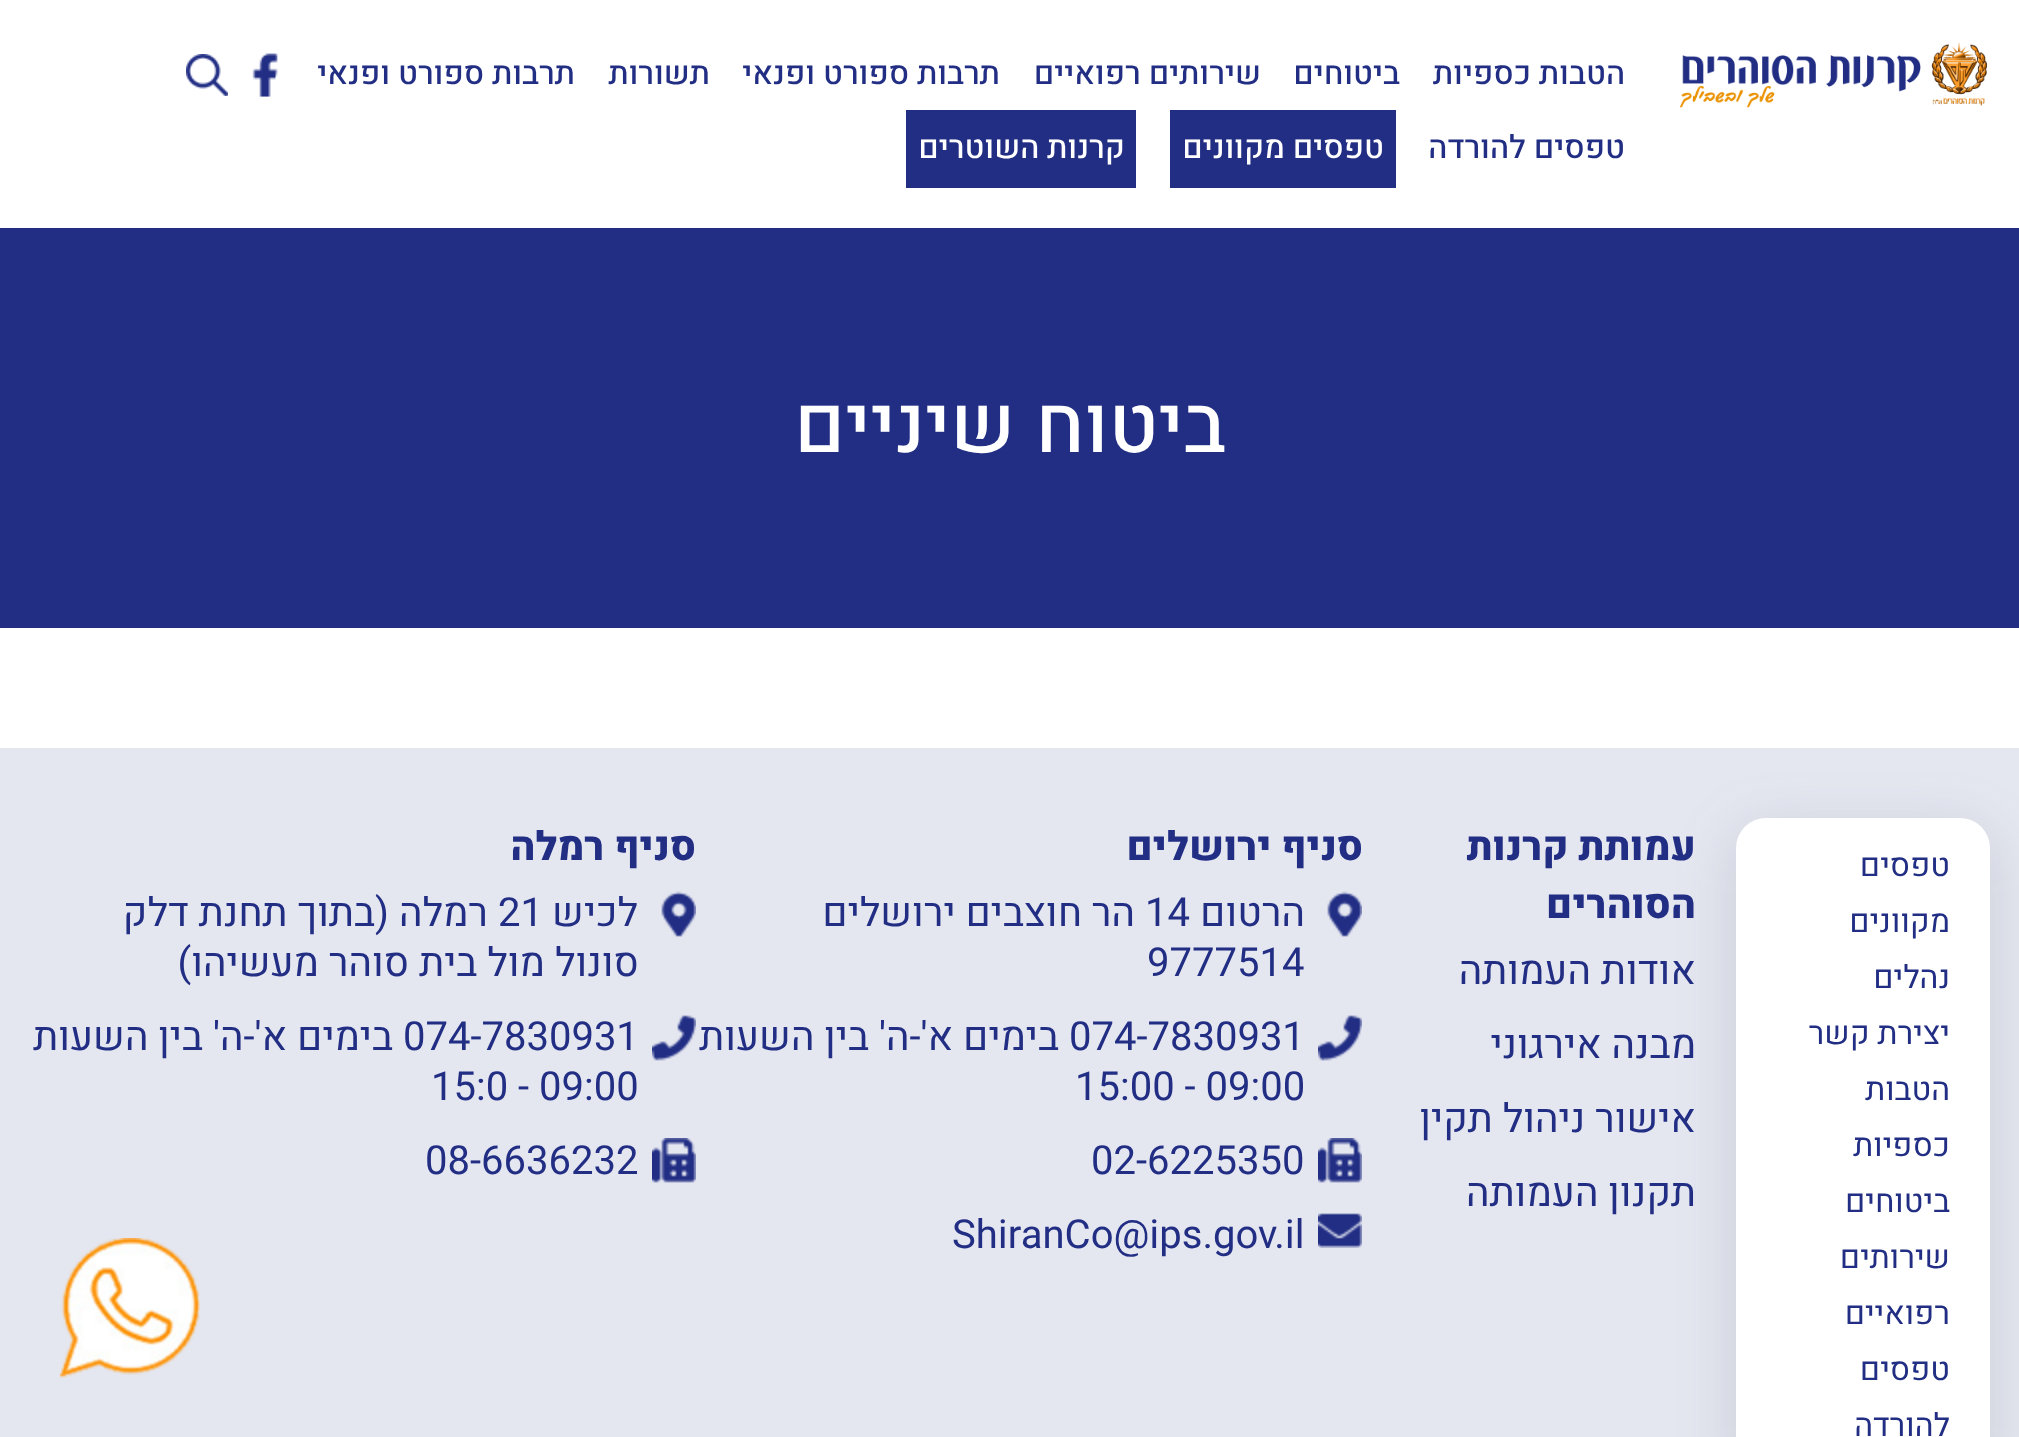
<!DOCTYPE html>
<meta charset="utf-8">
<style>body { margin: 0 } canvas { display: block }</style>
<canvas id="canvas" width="2019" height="1437"></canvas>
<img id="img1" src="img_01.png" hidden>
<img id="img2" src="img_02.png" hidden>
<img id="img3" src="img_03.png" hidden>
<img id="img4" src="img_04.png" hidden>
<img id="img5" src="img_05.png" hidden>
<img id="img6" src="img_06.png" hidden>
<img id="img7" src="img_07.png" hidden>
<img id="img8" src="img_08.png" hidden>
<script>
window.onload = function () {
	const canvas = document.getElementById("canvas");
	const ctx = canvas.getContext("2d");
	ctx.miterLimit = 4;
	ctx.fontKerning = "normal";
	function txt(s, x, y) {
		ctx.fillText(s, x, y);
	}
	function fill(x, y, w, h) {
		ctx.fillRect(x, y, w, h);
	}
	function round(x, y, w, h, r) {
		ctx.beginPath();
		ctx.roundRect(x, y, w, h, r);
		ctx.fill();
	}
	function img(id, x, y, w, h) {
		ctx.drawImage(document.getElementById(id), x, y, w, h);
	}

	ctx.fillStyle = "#FFFFFF";
	fill(0, 0, 2019, 1437);
	img("img1", 1680, 42, 308, 66);
	img("img2", 252, 53, 26, 44);
	img("img3", 186, 54, 42, 42);
	ctx.fillStyle = "#212E84";
	fill(1170, 110, 226, 78);
	fill(906, 110, 230, 78);
	fill(0, 228, 2019, 400);
	ctx.fillStyle = "#E4E6F0";
	fill(0, 748, 2019, 689);
	ctx.fillStyle = "rgba(100, 100, 111, 0.2)";
	ctx.filter = "blur(29px)";
	ctx.beginPath();
	ctx.roundRect(1736, 832, 254, 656, 30);
	ctx.fill();
	ctx.filter = "none";
	ctx.fillStyle = "#FFFFFF";
	round(1736, 818, 254, 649, 30);
	img("img4", 1327, 891, 35, 46);
	img("img5", 1318, 1015, 44, 46);
	img("img6", 1318, 1138, 44, 45);
	img("img7", 1318, 1213, 44, 35);
	img("img4", 661, 891, 35, 46);
	img("img5", 652, 1015, 44, 46);
	img("img6", 652, 1138, 44, 45);
	img("img8", 60, 1238, 140, 140);
	ctx.direction = "rtl";
	ctx.font = "500 32px Heebo";
	ctx.fillStyle = "#212E84";
	txt("הטבות כספיות", 1625, 84);
	txt("ביטוחים", 1400, 84);
	txt("שירותים רפואיים", 1261, 84);
	txt("תרבות ספורט ופנאי", 1000, 84);
	txt("תשורות", 710, 84);
	txt("תרבות ספורט ופנאי", 575, 84);
	txt("טפסים להורדה", 1625, 158);
	ctx.fillStyle = "#FFFFFF";
	txt("טפסים מקוונים", 1384, 158);
	txt("קרנות השוטרים", 1125, 158);
	ctx.font = "500 80px Heebo";
	txt("ביטוח שיניים", 1226, 452);
	ctx.font = "32px Heebo";
	ctx.fillStyle = "#212E84";
	txt("טפסים", 1950, 876);
	txt("מקוונים", 1950, 932);
	txt("נהלים", 1950, 988);
	txt("יצירת קשר", 1950, 1044);
	txt("הטבות", 1950, 1100);
	txt("כספיות", 1950, 1156);
	txt("ביטוחים", 1950, 1212);
	txt("שירותים", 1950, 1268);
	txt("רפואיים", 1950, 1324);
	txt("טפסים", 1950, 1380);
	txt("להורדה", 1950, 1436);
	ctx.font = "800 40px Heebo";
	txt("עמותת קרנות", 1696, 860);
	txt("הסוהרים", 1696, 918);
	ctx.font = "40px Heebo";
	txt("אודות העמותה", 1696, 984);
	txt("מבנה אירגוני", 1696, 1058);
	txt("אישור ניהול תקין", 1696, 1132);
	txt("תקנון העמותה", 1696, 1206);
	ctx.font = "800 40px Heebo";
	txt("סניף ירושלים", 1363, 860);
	ctx.font = "40px Heebo";
	txt("הרטום", 1305, 926);
	ctx.direction = "ltr";
	txt("14", 1145, 926);
	ctx.direction = "rtl";
	txt("הר חוצבים ירושלים", 1135, 926);
	ctx.direction = "ltr";
	txt("9777514", 1147, 976);
	txt("074-7830931", 1069, 1050);
	ctx.direction = "rtl";
	txt("בימים א'-ה' בין השעות", 1059, 1050);
	ctx.direction = "ltr";
	txt("15:00 - 09:00", 1075, 1100);
	txt("02-6225350", 1091, 1174);
	txt("ShiranCo@ips.gov.il", 952, 1248);
	ctx.direction = "rtl";
	ctx.font = "800 40px Heebo";
	txt("סניף רמלה", 696, 860);
	ctx.font = "40px Heebo";
	txt("לכיש", 638, 926);
	ctx.direction = "ltr";
	txt("21", 498, 926);
	ctx.direction = "rtl";
	txt("רמלה (בתוך תחנת דלק", 488, 926);
	txt("סונול מול בית סוהר מעשיהו)", 639, 976);
	ctx.direction = "ltr";
	txt("074-7830931", 403, 1050);
	ctx.direction = "rtl";
	txt("בימים א'-ה' בין השעות", 393, 1050);
	ctx.direction = "ltr";
	txt("15:0 - 09:00", 431, 1100);
	txt("08-6636232", 425, 1174);
};
</script>
